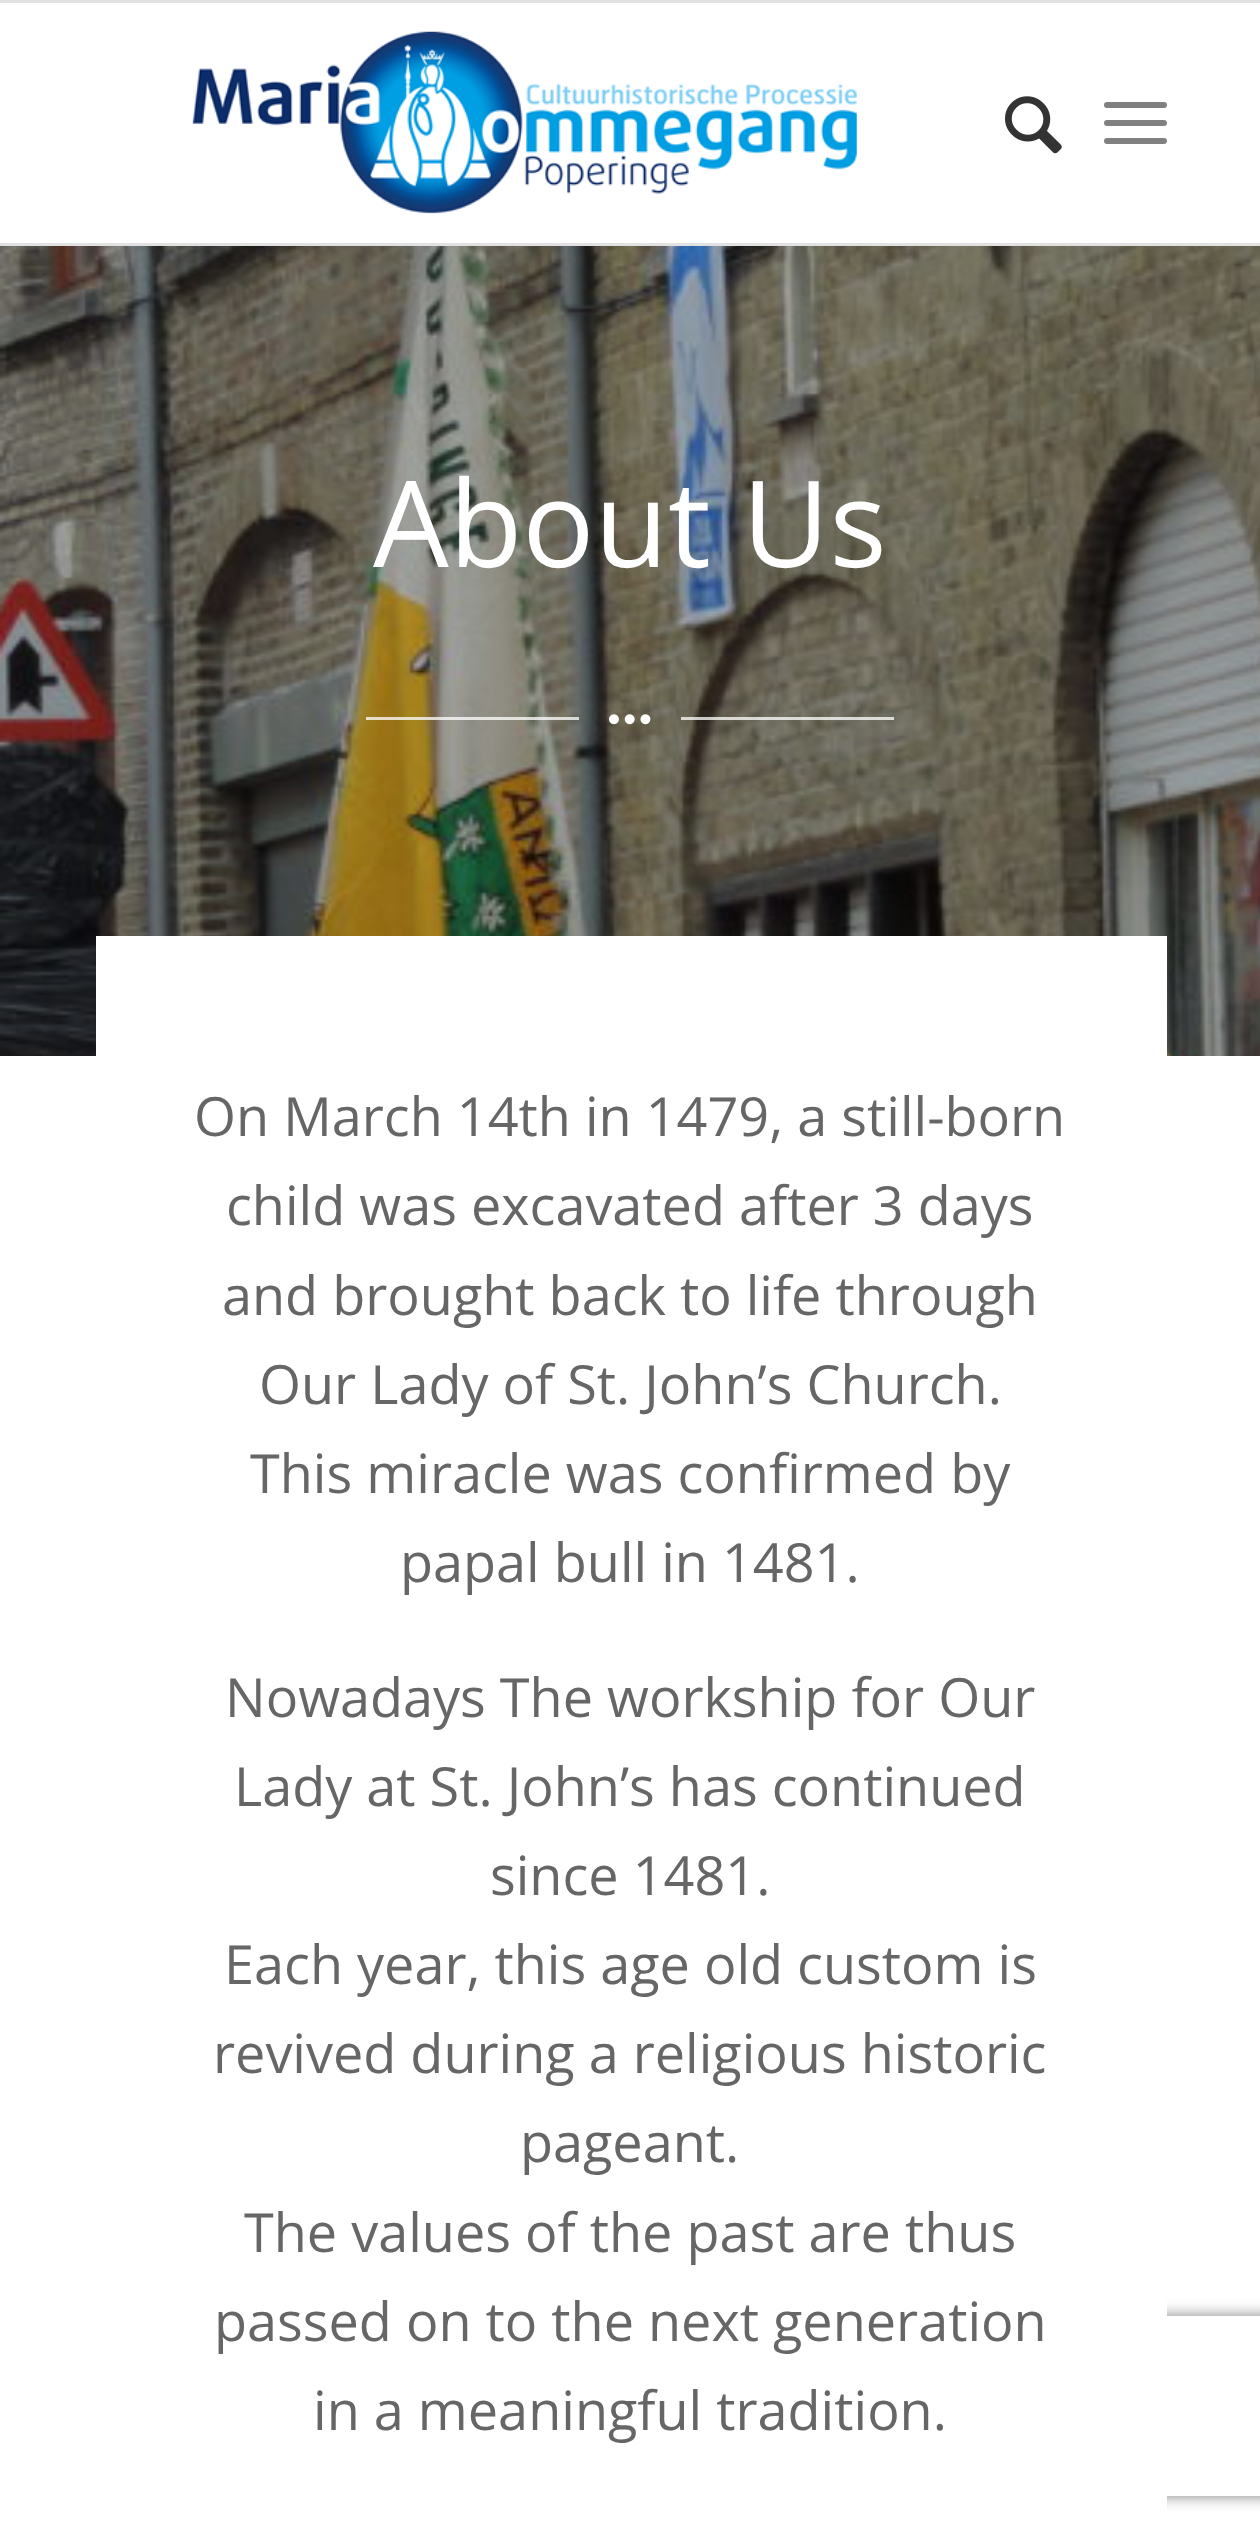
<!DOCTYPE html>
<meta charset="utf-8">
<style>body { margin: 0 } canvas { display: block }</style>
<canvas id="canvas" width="1260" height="2536"></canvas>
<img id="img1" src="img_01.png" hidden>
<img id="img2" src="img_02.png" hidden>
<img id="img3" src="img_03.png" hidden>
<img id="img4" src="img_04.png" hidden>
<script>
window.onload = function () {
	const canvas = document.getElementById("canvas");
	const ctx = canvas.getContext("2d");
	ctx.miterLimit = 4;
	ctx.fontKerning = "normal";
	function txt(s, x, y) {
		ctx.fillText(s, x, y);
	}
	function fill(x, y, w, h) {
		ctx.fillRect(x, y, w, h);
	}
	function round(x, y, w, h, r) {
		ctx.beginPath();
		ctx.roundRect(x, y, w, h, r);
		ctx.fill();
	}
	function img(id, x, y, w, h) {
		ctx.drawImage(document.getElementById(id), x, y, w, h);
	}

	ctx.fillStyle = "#FFFFFF";
	fill(0, 0, 1260, 2536);
	ctx.fillStyle = "#E1E1E1";
	fill(0, 0, 1260, 3);
	fill(0, 243, 1260, 3);
	img("img1", 192, 31, 665, 183);
	img("img2", 1005, 96, 57, 58);
	ctx.fillStyle = "#808080";
	round(1104, 120, 63, 6, 3);
	round(1104, 102, 63, 6, 3);
	round(1104, 138, 63, 6, 3);
	img("img3", 0, 246, 1260, 810);
	ctx.fillStyle = "rgba(255, 255, 255, 0.76)";
	fill(366, 717, 213, 3);
	img("img4", 609, 714, 42, 11);
	fill(681, 717, 213, 3);
	ctx.save();
	ctx.beginPath();
	ctx.moveTo(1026, 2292);
	ctx.lineTo(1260, 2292);
	ctx.lineTo(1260, 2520);
	ctx.lineTo(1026, 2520);
	ctx.closePath();
	ctx.moveTo(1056, 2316);
	ctx.lineTo(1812, 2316);
	ctx.bezierCurveTo(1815.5, 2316, 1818, 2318.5, 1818, 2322);
	ctx.lineTo(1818, 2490);
	ctx.bezierCurveTo(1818, 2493.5, 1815.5, 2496, 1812, 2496);
	ctx.lineTo(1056, 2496);
	ctx.bezierCurveTo(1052.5, 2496, 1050, 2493.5, 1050, 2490);
	ctx.lineTo(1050, 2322);
	ctx.bezierCurveTo(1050, 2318.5, 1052.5, 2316, 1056, 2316);
	ctx.closePath();
	ctx.clip("evenodd");
	ctx.fillStyle = "#808080";
	ctx.filter = "blur(7.5px)";
	ctx.beginPath();
	ctx.roundRect(1050, 2316, 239, 180, 6);
	ctx.fill();
	ctx.filter = "none";
	ctx.restore();
	ctx.fillStyle = "#FFFFFF";
	fill(96, 936, 1071, 1575);
	ctx.font = "120px Open Sans";
	txt("About Us", 373, 567);
	ctx.font = "54px Open Sans";
	ctx.fillStyle = "#666666";
	txt("On March 14th in 1479, a still-born", 194, 1136);
	txt("child was excavated after 3 days", 226, 1225);
	txt("and brought back to life through", 222, 1315);
	txt("Our Lady of St. John’s Church.", 259, 1404);
	txt("This miracle was confirmed by", 250, 1493);
	txt("papal bull in 1481.", 400, 1582);
	txt("Nowadays The workship for Our", 225, 1717);
	txt("Lady at St. John’s has continued", 234, 1806);
	txt("since 1481.", 490, 1895);
	txt("Each year, this age old custom is", 224, 1984);
	txt("revived during a religious historic", 213, 2073);
	txt("pageant.", 520, 2162);
	txt("The values of the past are thus", 244, 2252);
	txt("passed on to the next generation", 214, 2341);
	txt("in a meaningful tradition.", 313, 2430);
};
</script>
